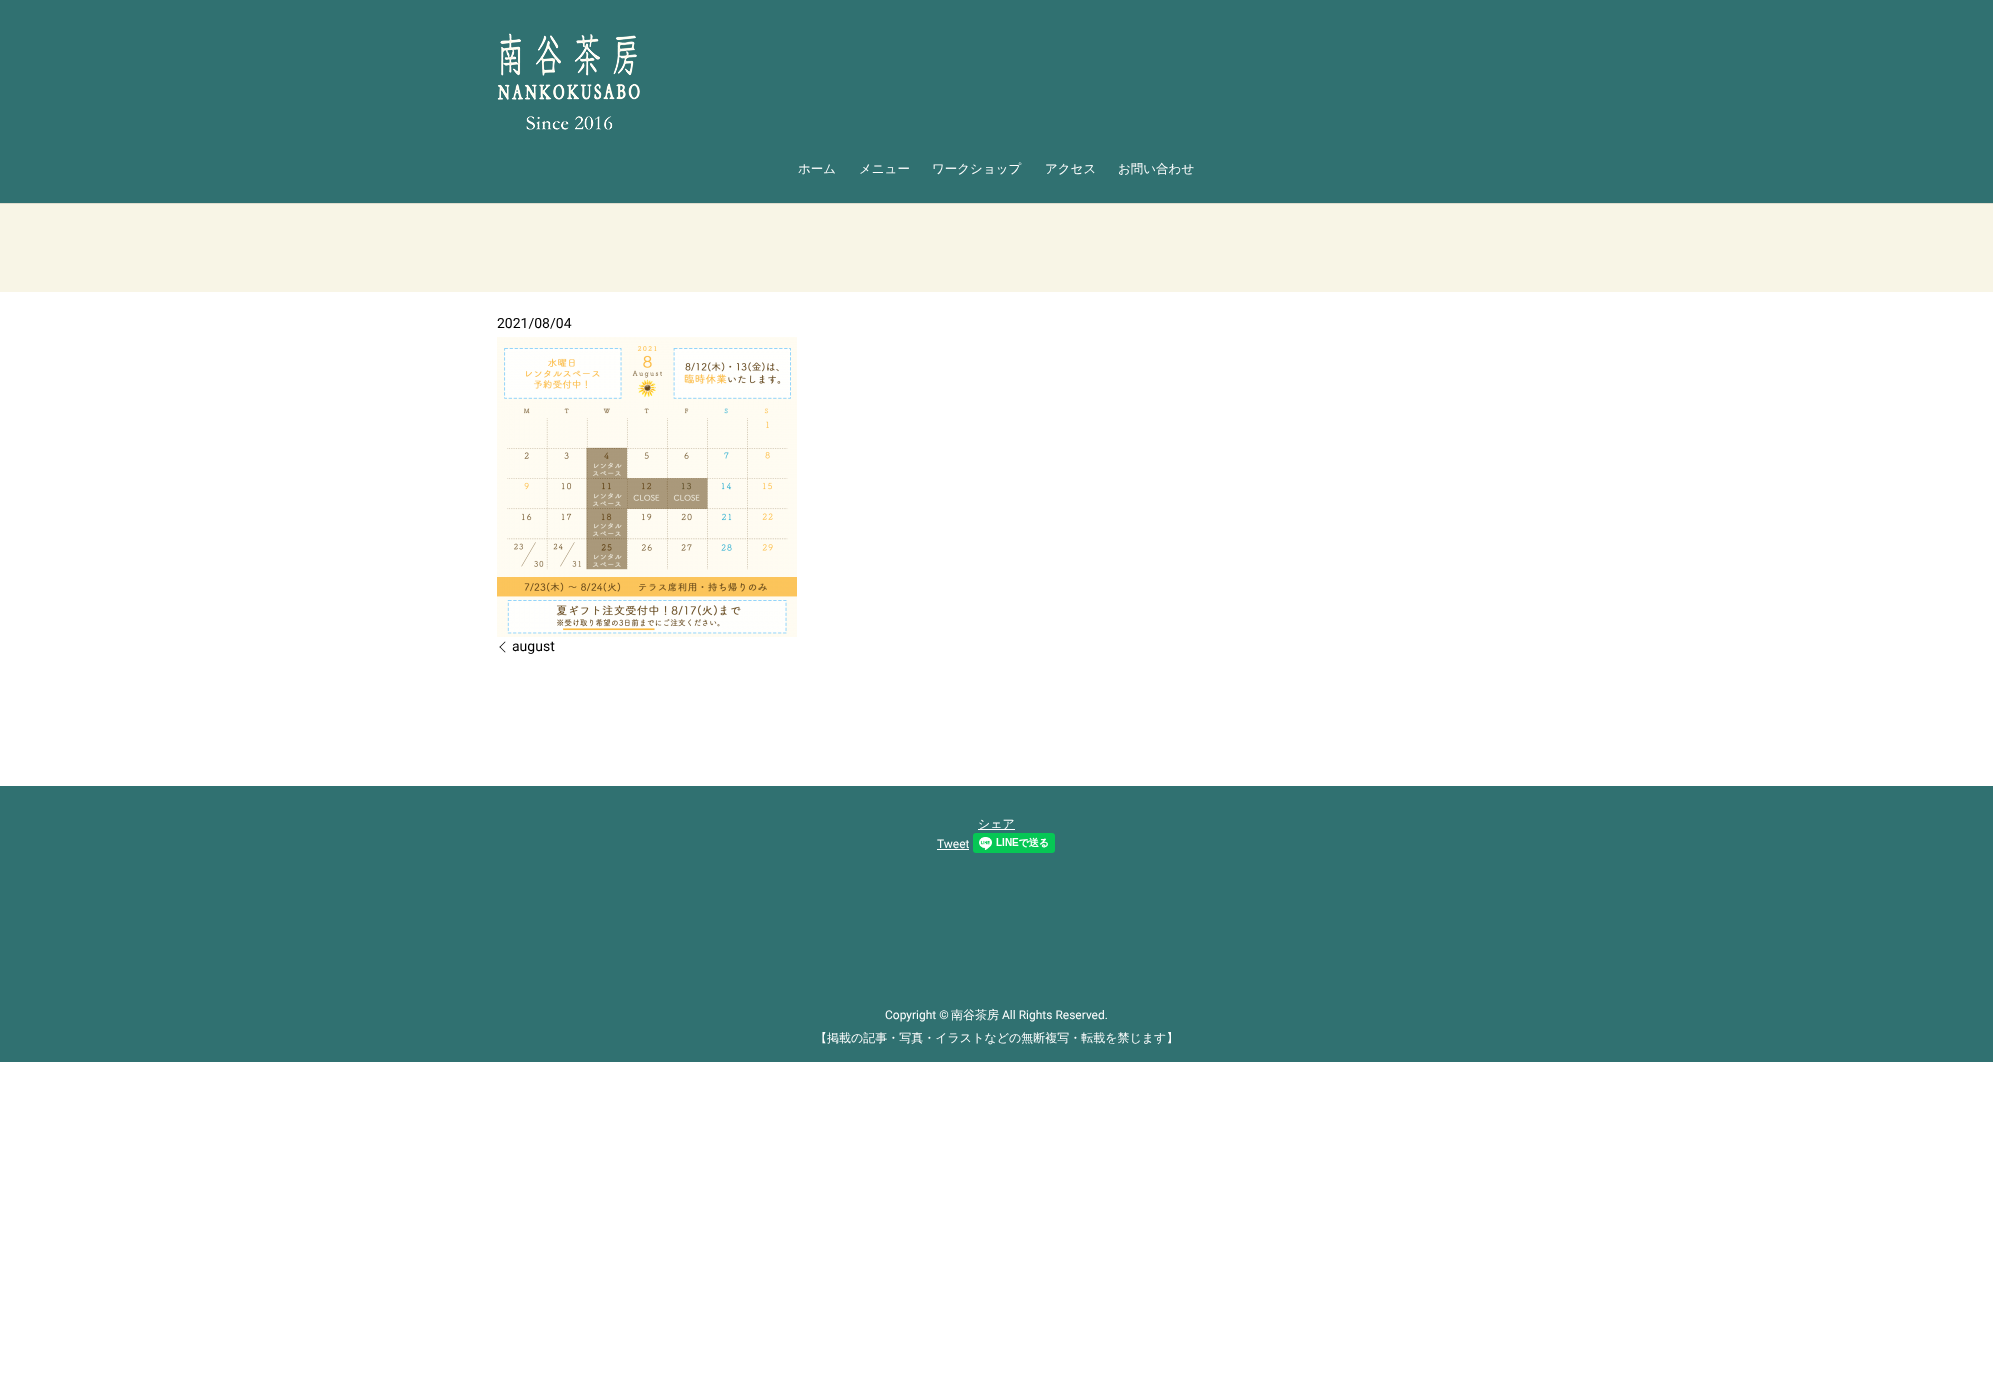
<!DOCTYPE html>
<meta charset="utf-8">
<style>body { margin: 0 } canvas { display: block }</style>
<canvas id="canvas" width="1993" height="1379"></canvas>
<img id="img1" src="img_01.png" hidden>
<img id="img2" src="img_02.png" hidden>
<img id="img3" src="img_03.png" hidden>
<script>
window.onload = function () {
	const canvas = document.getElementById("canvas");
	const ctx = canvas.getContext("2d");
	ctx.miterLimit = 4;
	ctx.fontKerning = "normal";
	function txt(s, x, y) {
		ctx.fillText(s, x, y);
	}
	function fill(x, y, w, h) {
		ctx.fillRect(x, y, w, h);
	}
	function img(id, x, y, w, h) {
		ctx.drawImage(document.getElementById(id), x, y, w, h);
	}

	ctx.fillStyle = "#FFFFFF";
	fill(0, 0, 1993, 1379);
	ctx.fillStyle = "#F8F5E6";
	fill(0, 203, 1993, 89);
	ctx.fillStyle = "rgba(0, 0, 0, 0.1)";
	ctx.filter = "blur(0.5px)";
	ctx.beginPath();
	ctx.rect(0, 1, 1993, 203);
	ctx.fill();
	ctx.filter = "none";
	ctx.fillStyle = "#307171";
	fill(0, 0, 1993, 203);
	img("img1", 497, 33, 143, 97);
	img("img2", 497, 337, 300, 300);
	ctx.fillStyle = "#000000";
	ctx.beginPath();
	ctx.moveTo(499.5, 647);
	ctx.lineTo(505, 641.5);
	ctx.lineTo(505.5, 642);
	ctx.lineTo(500, 647.5);
	ctx.closePath();
	ctx.fill();
	ctx.beginPath();
	ctx.moveTo(505, 652.5);
	ctx.lineTo(499.5, 647);
	ctx.lineTo(500, 646.5);
	ctx.lineTo(505.5, 652);
	ctx.closePath();
	ctx.fill();
	ctx.fillStyle = "#307171";
	fill(0, 786, 1993, 276);
	ctx.fillStyle = "#FFFFFF";
	fill(978, 829, 37, 1);
	fill(937, 849, 32, 1);
	img("img3", 973, 833, 82, 20);
	ctx.font = "500 12.5px WenQuanYi Zen Hei";
	txt("ホーム", 798, 173);
	txt("メニュー", 859, 173);
	txt("ワークショップ", 932, 173);
	txt("アクセス", 1045, 173);
	txt("お問い合わせ", 1118, 173);
	ctx.font = "14px Roboto";
	ctx.fillStyle = "#000000";
	txt("2021/08/04", 497, 328);
	txt("august", 512, 651);
	ctx.font = "500 12px WenQuanYi Zen Hei";
	ctx.fillStyle = "#FFFFFF";
	txt("シェア", 978, 828);
	ctx.font = "12px Roboto";
	txt("Tweet", 937, 848);
	txt("Copyright ©", 885, 1019);
	ctx.font = "500 12px WenQuanYi Zen Hei";
	txt("南谷茶房", 951, 1019);
	ctx.font = "12px Roboto";
	txt("All Rights Reserved.", 1002, 1019);
	ctx.font = "500 12px WenQuanYi Zen Hei";
	txt("【掲載の記事・写真・イラストなどの無断複写・転載を禁じます】", 815, 1042);
};
</script>
